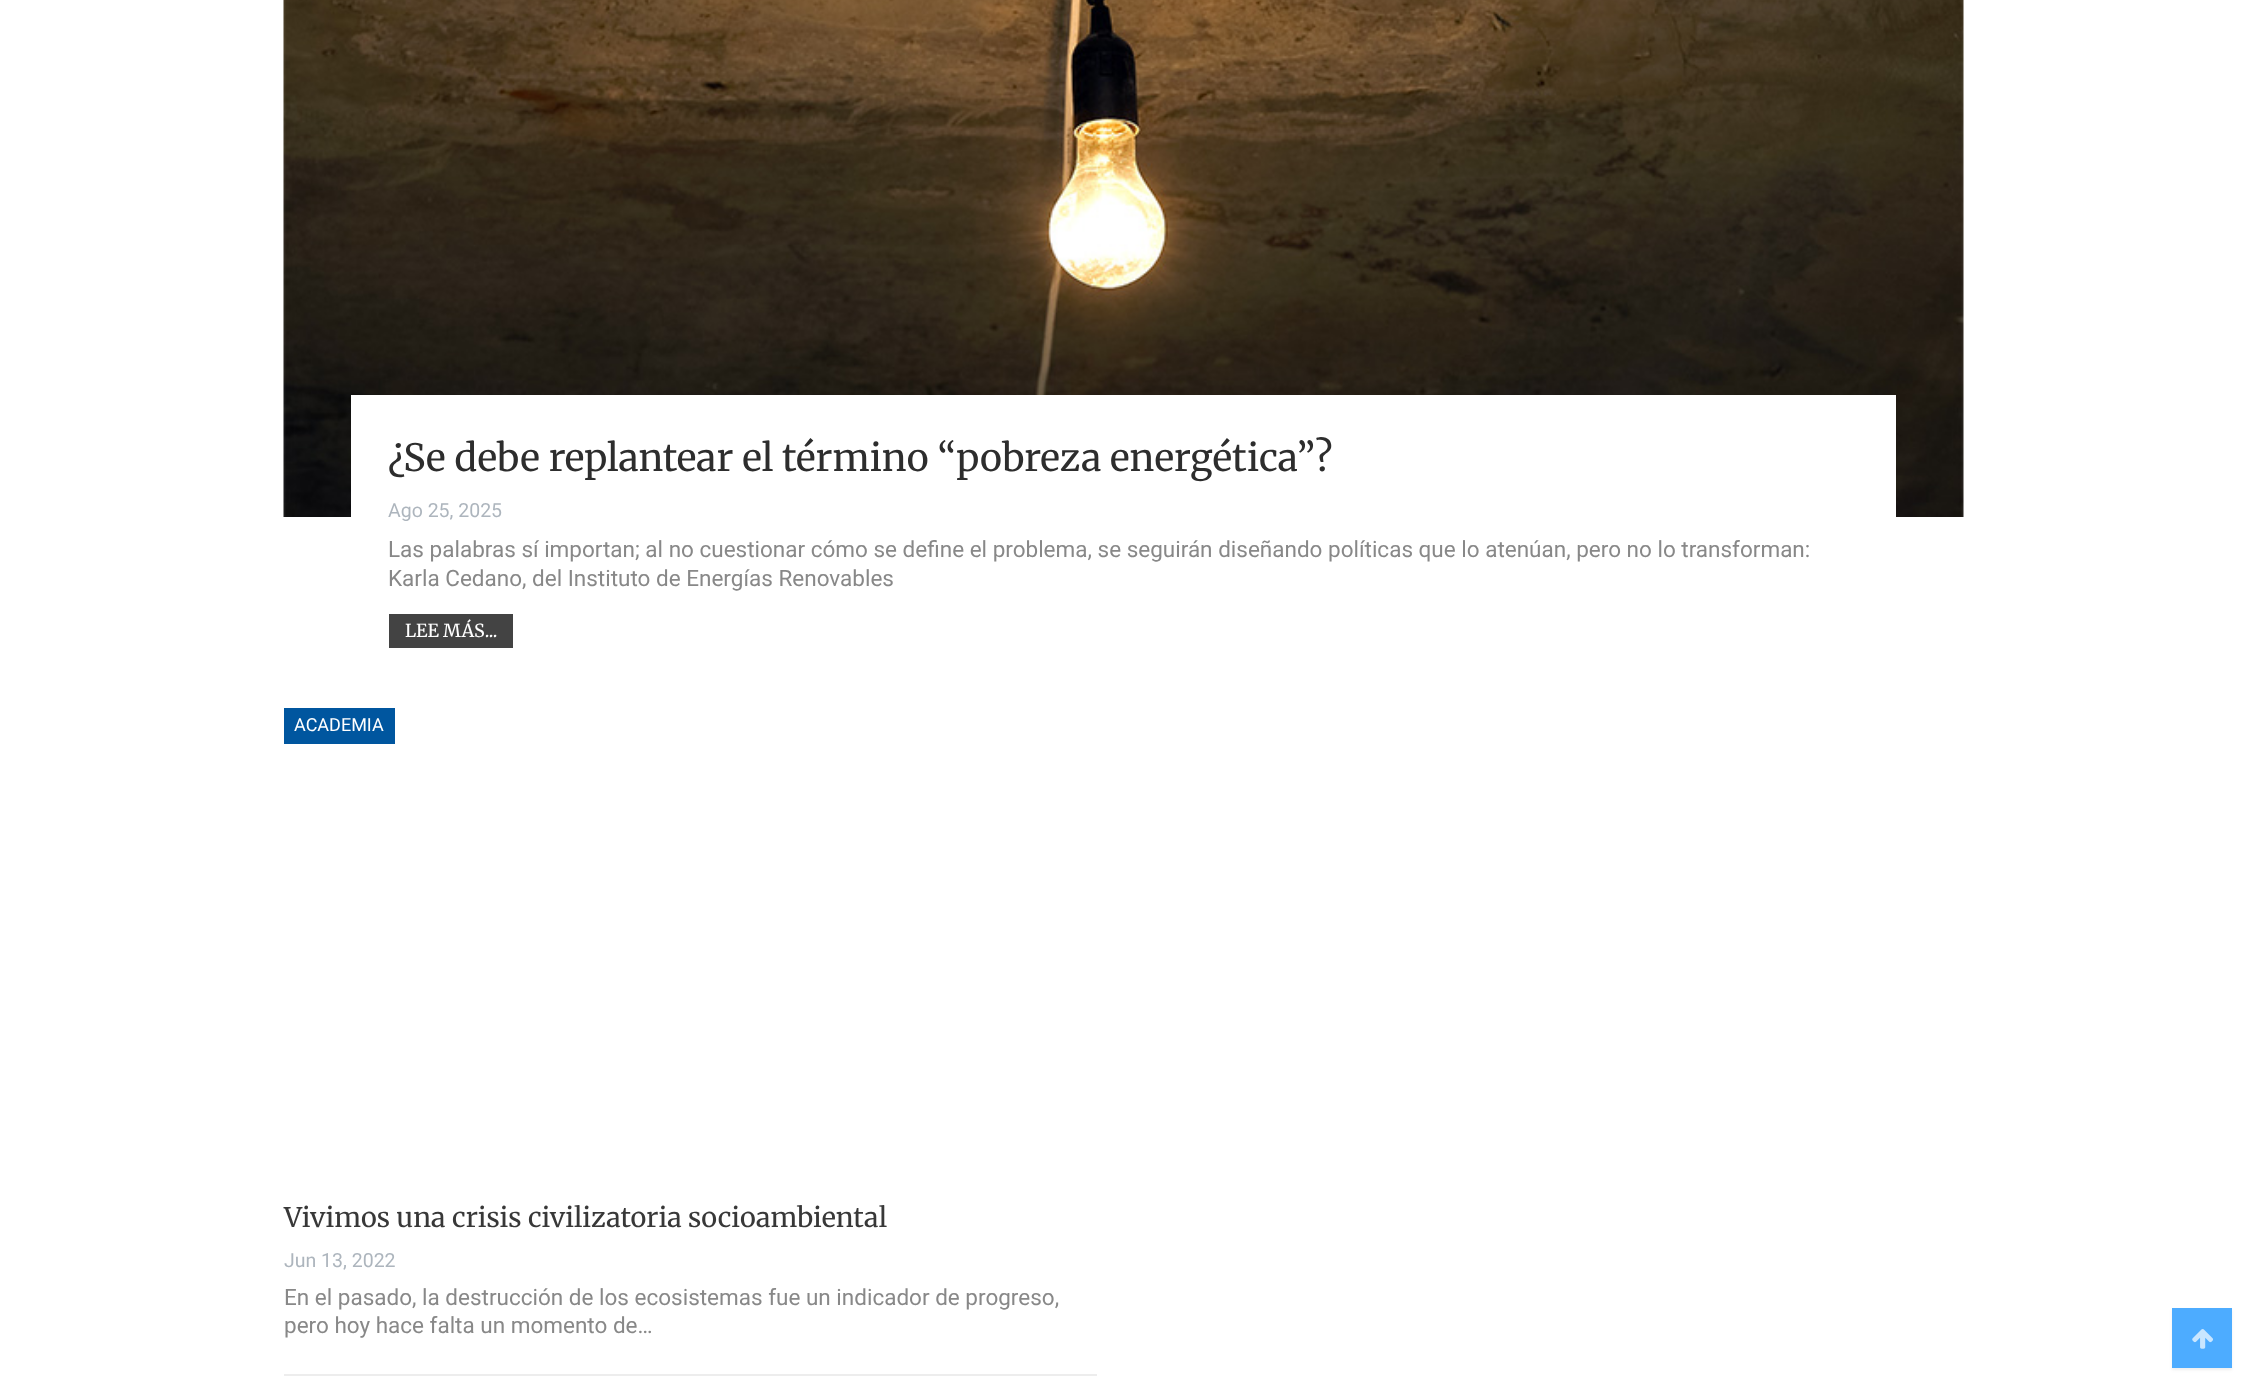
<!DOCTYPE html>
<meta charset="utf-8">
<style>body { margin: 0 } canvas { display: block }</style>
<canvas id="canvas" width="2246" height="1379"></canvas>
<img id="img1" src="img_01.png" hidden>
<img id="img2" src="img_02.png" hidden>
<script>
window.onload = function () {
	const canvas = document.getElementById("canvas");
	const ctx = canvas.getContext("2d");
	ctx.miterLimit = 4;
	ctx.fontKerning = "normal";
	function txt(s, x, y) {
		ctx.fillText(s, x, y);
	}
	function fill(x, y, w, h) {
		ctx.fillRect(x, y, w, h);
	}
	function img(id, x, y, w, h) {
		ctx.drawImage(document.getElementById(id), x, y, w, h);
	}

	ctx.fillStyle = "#FFFFFF";
	fill(0, 0, 2246, 1379);
	img("img1", 283, 0, 1681, 517);
	fill(351, 395, 1545, 122);
	ctx.fillStyle = "#434343";
	fill(389, 614, 124, 34);
	ctx.fillStyle = "#00569F";
	fill(284, 708, 111, 36);
	ctx.fillStyle = "#EDEDED";
	fill(284, 1374, 813, 2);
	ctx.fillStyle = "rgba(77, 77, 77, 0.09)";
	ctx.filter = "blur(1.5px)";
	ctx.beginPath();
	ctx.rect(2172, 1310, 60, 60);
	ctx.fill();
	ctx.filter = "none";
	ctx.fillStyle = "#4DACFF";
	fill(2172, 1308, 60, 60);
	img("img2", 2192, 1329, 21, 20);
	ctx.font = "37.5px Merriweather";
	ctx.fillStyle = "#2D2D2D";
	txt("¿Se debe replantear el término “pobreza energética”?", 388, 471);
	ctx.font = "19.5px Roboto";
	ctx.fillStyle = "#ADB5BD";
	txt("Ago 25, 2025", 388, 517);
	ctx.font = "22.5px Roboto";
	ctx.fillStyle = "#888888";
	txt("Las palabras sí importan; al no cuestionar cómo se define el problema, se seguirán diseñando políticas que lo atenúan, pero no lo transforman:", 388, 557);
	txt("Karla Cedano, del Instituto de Energías Renovables", 388, 586);
	ctx.font = "18px Merriweather";
	ctx.fillStyle = "#FFFFFF";
	txt("LEE MÁS...", 405, 637);
	ctx.font = "18px Roboto";
	txt("ACADEMIA", 294, 731);
	ctx.font = "27px Merriweather";
	ctx.fillStyle = "#383838";
	txt("Vivimos una crisis civilizatoria socioambiental", 284, 1227);
	ctx.font = "19.5px Roboto";
	ctx.fillStyle = "#ADB5BD";
	txt("Jun 13, 2022", 284, 1267);
	ctx.font = "22.5px Roboto";
	ctx.fillStyle = "#888888";
	txt("En el pasado, la destrucción de los ecosistemas fue un indicador de progreso,", 284, 1305);
	txt("pero hoy hace falta un momento de…", 284, 1333);
};
</script>
